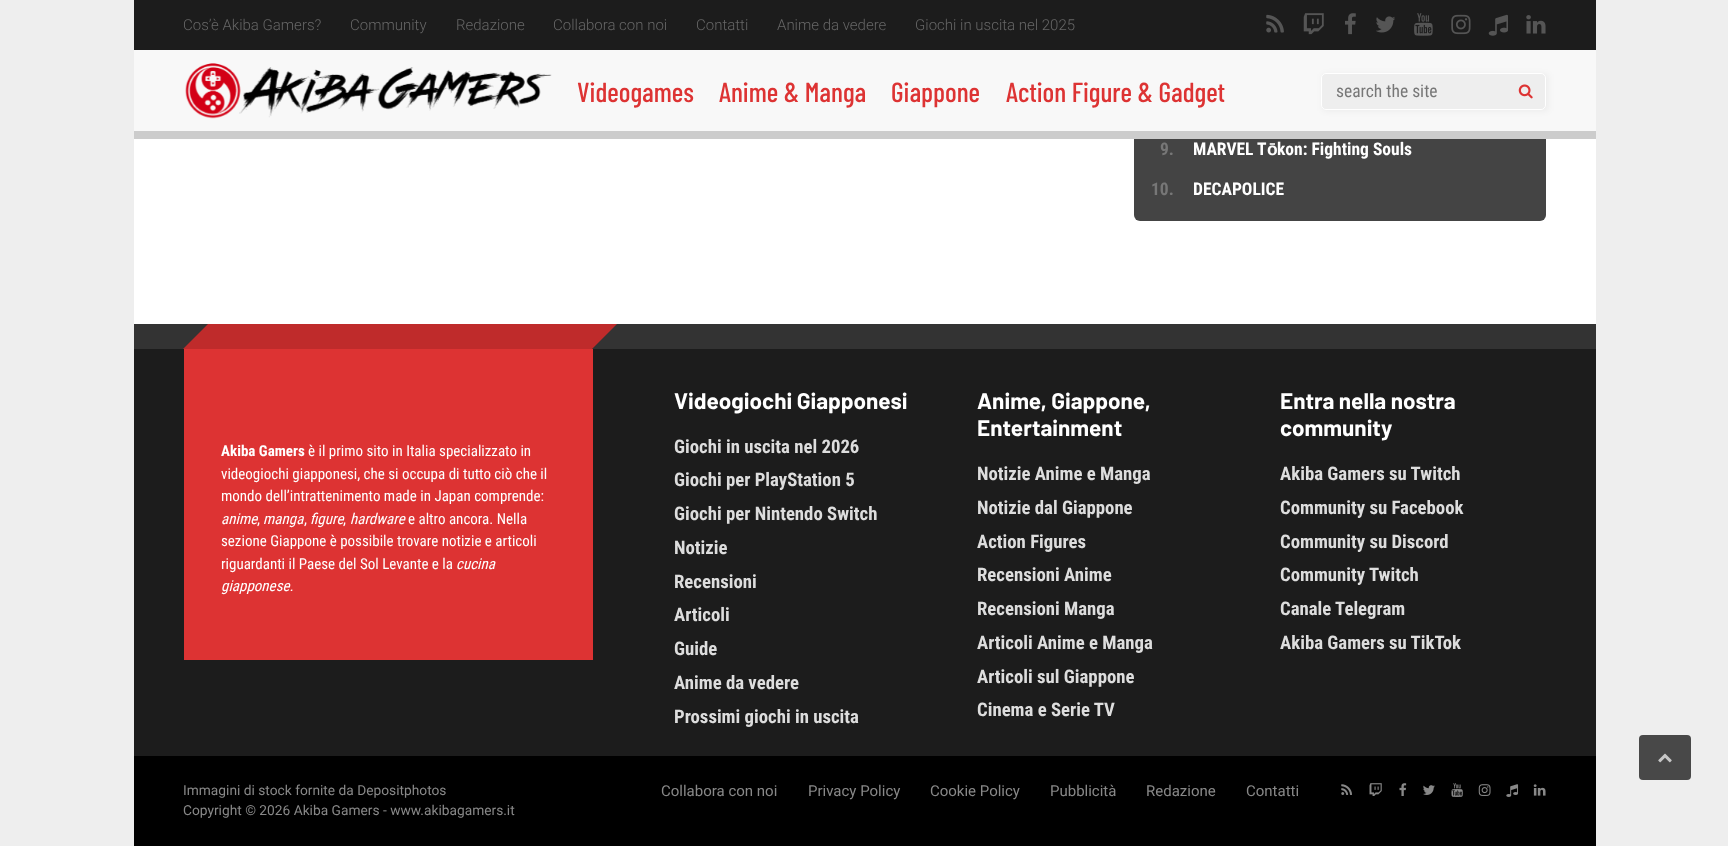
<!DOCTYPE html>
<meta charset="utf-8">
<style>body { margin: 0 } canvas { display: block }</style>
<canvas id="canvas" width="1728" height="846"></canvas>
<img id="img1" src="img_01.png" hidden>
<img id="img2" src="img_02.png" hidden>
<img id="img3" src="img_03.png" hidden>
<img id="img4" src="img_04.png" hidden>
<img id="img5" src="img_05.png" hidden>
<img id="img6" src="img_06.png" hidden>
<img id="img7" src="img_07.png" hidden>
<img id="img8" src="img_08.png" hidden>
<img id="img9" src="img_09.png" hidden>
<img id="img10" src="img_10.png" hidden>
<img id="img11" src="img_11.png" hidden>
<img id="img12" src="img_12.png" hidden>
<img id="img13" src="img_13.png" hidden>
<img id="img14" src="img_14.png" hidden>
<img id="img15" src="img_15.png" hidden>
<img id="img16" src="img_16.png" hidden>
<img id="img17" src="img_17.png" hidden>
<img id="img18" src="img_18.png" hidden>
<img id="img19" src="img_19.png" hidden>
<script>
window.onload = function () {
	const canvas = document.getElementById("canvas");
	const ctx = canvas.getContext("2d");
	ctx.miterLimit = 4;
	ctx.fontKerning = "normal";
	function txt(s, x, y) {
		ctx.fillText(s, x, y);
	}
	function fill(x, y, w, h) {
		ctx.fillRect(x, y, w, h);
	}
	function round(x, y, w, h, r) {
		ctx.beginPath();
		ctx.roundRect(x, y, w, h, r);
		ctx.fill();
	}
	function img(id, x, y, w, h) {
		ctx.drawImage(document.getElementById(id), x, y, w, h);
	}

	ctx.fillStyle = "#EEEEEE";
	fill(0, 0, 1728, 846);
	ctx.fillStyle = "#FFFFFF";
	fill(134, 139, 1462, 185);
	ctx.fillStyle = "#444444";
	round(1134, -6, 412, 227, 6);
	ctx.fillStyle = "#1C1C1C";
	fill(134, 0, 1462, 50);
	img("img1", 1266, 14, 18, 19);
	img("img2", 1303, 13, 21, 22);
	img("img3", 1345, 13, 11, 22);
	img("img4", 1376, 16, 19, 17);
	img("img5", 1414, 13, 19, 23);
	img("img6", 1451, 14, 20, 21);
	img("img7", 1488, 14, 20, 22);
	img("img8", 1526, 15, 20, 19);
	ctx.fillStyle = "#F8F8F8";
	fill(134, 50, 1462, 81);
	img("img9", 185, 63, 367, 56);
	ctx.fillStyle = "rgba(0, 0, 0, 0.05)";
	ctx.filter = "blur(3px)";
	ctx.beginPath();
	ctx.rect(1323, 74, 225, 37);
	ctx.fill();
	ctx.filter = "none";
	ctx.fillStyle = "#EEEEEE";
	ctx.beginPath();
	ctx.roundRect(1321.5, 73.5, 224, 36, 4.5);
	ctx.fill();
	ctx.strokeStyle = "#FFFFFF";
	ctx.stroke();
	img("img10", 1518, 84, 15, 15);
	ctx.fillStyle = "#CCCCCC";
	fill(134, 131, 1462, 8);
	ctx.fillStyle = "#333333";
	fill(134, 324, 1462, 25);
	ctx.fillStyle = "#BF2B2B";
	ctx.beginPath();
	ctx.moveTo(208, 324);
	ctx.lineTo(617, 324);
	ctx.lineTo(592, 349);
	ctx.lineTo(183, 349);
	ctx.closePath();
	ctx.fill();
	ctx.fillStyle = "#1C1C1C";
	fill(134, 349, 1462, 407);
	ctx.fillStyle = "#DD3333";
	fill(184, 349, 409, 311);
	ctx.fillStyle = "#000000";
	fill(134, 756, 1462, 90);
	img("img11", 1341, 784, 11, 11);
	img("img12", 1369, 783, 13, 13);
	img("img13", 1399, 783, 8, 13);
	img("img14", 1423, 785, 12, 10);
	img("img15", 1451, 783, 12, 14);
	img("img16", 1478, 784, 13, 12);
	img("img17", 1506, 784, 13, 13);
	img("img18", 1533, 784, 13, 12);
	ctx.fillStyle = "#484848";
	round(1639, 735, 52, 45, 4);
	img("img19", 1658, 753, 14, 10);
	ctx.font = "300 15px Roboto";
	ctx.fillStyle = "#666666";
	txt("Cos’è Akiba Gamers?", 183, 30);
	txt("Community", 350, 30);
	txt("Redazione", 456, 30);
	txt("Collabora con noi", 553, 30);
	txt("Contatti", 696, 30);
	txt("Anime da vedere", 777, 30);
	txt("Giochi in uscita nel 2025", 915, 30);
	ctx.font = "500 27.5px Barlow Condensed";
	ctx.fillStyle = "#DD3333";
	txt("Videogames", 577, 102);
	txt("Anime & Manga", 719, 102);
	txt("Giappone", 891, 102);
	txt("Action Figure & Gadget", 1006, 102);
	ctx.font = "17.5px Roboto Condensed";
	ctx.fillStyle = "#777777";
	txt("search the site", 1336, 97);
	ctx.font = "bold 17.5px Roboto Condensed";
	txt("9.", 1160, 155);
	ctx.fillStyle = "#FFFFFF";
	txt("MARVEL T", 1193, 155);
	ctx.font = "bold 17.5px Liberation Sans";
	txt("ō", 1267, 155);
	ctx.font = "bold 17.5px Roboto Condensed";
	txt("kon: Fighting Souls", 1277, 155);
	ctx.fillStyle = "#777777";
	txt("10.", 1151, 195);
	ctx.fillStyle = "#FFFFFF";
	txt("DECAPOLICE", 1193, 195);
	ctx.font = "bold 15px Roboto Condensed";
	txt("Akiba Gamers", 221, 456);
	ctx.font = "15px Roboto Condensed";
	txt("è il primo sito in Italia specializzato in", 308, 456);
	txt("videogiochi giapponesi, che si occupa di tutto ciò che il", 221, 479);
	txt("mondo dell’intrattenimento made in Japan comprende:", 221, 501);
	ctx.font = "italic 15px Roboto Condensed";
	txt("anime", 221, 524);
	ctx.font = "15px Roboto Condensed";
	txt(",", 257, 524);
	ctx.font = "italic 15px Roboto Condensed";
	txt("manga", 263, 524);
	txt("figure", 310, 524);
	txt("hardware", 350, 524);
	ctx.font = "15px Roboto Condensed";
	txt("e altro ancora. Nella", 408, 524);
	txt(",", 304, 524);
	txt(",", 343, 524);
	txt("sezione Giappone è possibile trovare notizie e articoli", 221, 546);
	txt("riguardanti il Paese del Sol Levante e la", 221, 569);
	ctx.font = "italic 15px Roboto Condensed";
	txt("cucina", 456, 569);
	txt("giapponese.", 221, 591);
	ctx.font = "bold 22.5px Barlow";
	txt("Videogiochi Giapponesi", 674, 409);
	ctx.font = "bold 18.75px Roboto Condensed";
	ctx.fillStyle = "#DDDDDD";
	txt("Giochi in uscita nel 2026", 674, 453);
	txt("Giochi per PlayStation 5", 674, 486);
	txt("Giochi per Nintendo Switch", 674, 520);
	txt("Notizie", 674, 554);
	txt("Recensioni", 674, 588);
	txt("Articoli", 674, 621);
	txt("Guide", 674, 655);
	txt("Anime da vedere", 674, 689);
	txt("Prossimi giochi in uscita", 674, 723);
	ctx.font = "bold 22.5px Barlow";
	ctx.fillStyle = "#FFFFFF";
	txt("Anime, Giappone,", 977, 409);
	txt("Entertainment", 977, 436);
	ctx.font = "bold 18.75px Roboto Condensed";
	ctx.fillStyle = "#DDDDDD";
	txt("Notizie Anime e Manga", 977, 480);
	txt("Notizie dal Giappone", 977, 514);
	txt("Action Figures", 977, 548);
	txt("Recensioni Anime", 977, 581);
	txt("Recensioni Manga", 977, 615);
	txt("Articoli Anime e Manga", 977, 649);
	txt("Articoli sul Giappone", 977, 683);
	txt("Cinema e Serie TV", 977, 716);
	ctx.font = "bold 22.5px Barlow";
	ctx.fillStyle = "#FFFFFF";
	txt("Entra nella nostra", 1280, 409);
	txt("community", 1280, 436);
	ctx.font = "bold 18.75px Roboto Condensed";
	ctx.fillStyle = "#DDDDDD";
	txt("Akiba Gamers su Twitch", 1280, 480);
	txt("Community su Facebook", 1280, 514);
	txt("Community su Discord", 1280, 548);
	txt("Community Twitch", 1280, 581);
	txt("Canale Telegram", 1280, 615);
	txt("Akiba Gamers su TikTok", 1280, 649);
	ctx.font = "13.75px Roboto";
	ctx.fillStyle = "#888888";
	txt("Immagini di stock fornite da Depositphotos", 183, 795);
	txt("Copyright © 2026 Akiba Gamers - www.akibagamers.it", 183, 815);
	ctx.font = "15px Roboto";
	txt("Collabora con noi", 661, 796);
	txt("Privacy Policy", 808, 796);
	txt("Cookie Policy", 930, 796);
	txt("Pubblicità", 1050, 796);
	txt("Redazione", 1146, 796);
	txt("Contatti", 1246, 796);
};
</script>
